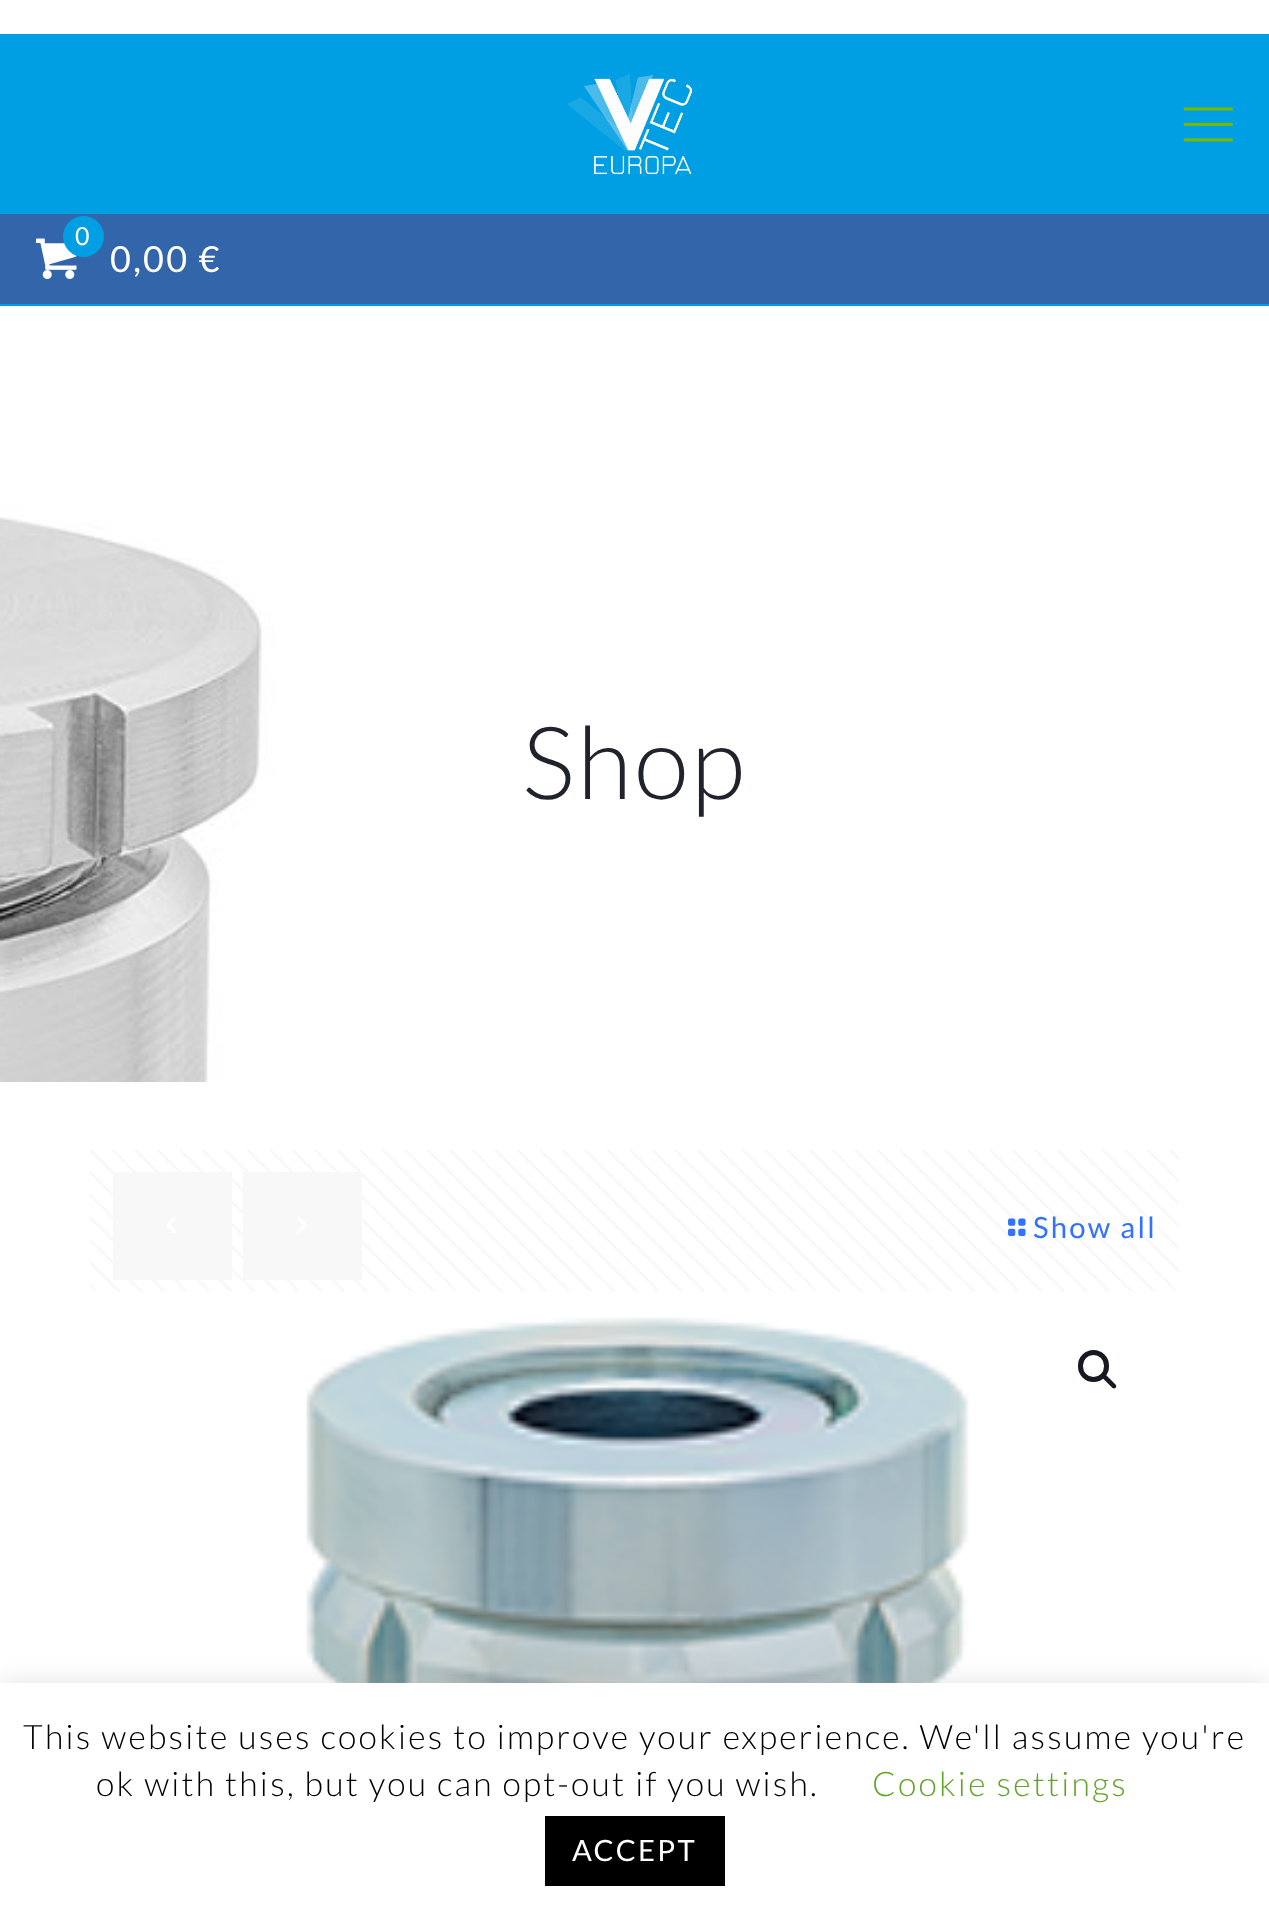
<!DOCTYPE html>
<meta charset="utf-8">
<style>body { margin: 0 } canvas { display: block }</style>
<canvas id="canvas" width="1269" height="1923"></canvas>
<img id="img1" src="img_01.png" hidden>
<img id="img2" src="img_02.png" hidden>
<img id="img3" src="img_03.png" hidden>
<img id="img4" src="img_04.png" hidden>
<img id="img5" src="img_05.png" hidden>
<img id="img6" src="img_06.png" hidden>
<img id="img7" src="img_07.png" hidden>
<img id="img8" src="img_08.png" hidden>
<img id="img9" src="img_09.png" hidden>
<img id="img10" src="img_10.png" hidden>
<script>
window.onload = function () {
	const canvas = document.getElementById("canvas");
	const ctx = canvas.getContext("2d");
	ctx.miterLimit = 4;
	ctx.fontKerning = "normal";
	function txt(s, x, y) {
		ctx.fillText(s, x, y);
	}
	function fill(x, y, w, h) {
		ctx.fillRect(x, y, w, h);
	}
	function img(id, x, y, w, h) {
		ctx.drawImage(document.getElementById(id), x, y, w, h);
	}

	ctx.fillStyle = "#FFFFFF";
	fill(0, 0, 1269, 1923);
	img("img1", 0, 0, 1269, 34);
	ctx.fillStyle = "#009FE3";
	fill(0, 34, 1269, 272);
	img("img2", 567, 74, 126, 100);
	img("img3", 1183, 107, 50, 35);
	ctx.fillStyle = "#3365AA";
	fill(0, 214, 1269, 90);
	img("img4", 36, 238, 41, 41);
	ctx.fillStyle = "#009FE3";
	ctx.beginPath();
	ctx.arc(83.5, 236.5, 20.5, 0, Math.PI * 2);
	ctx.fill();
	img("img5", 0, 306, 1269, 776);
	img("img6", 90, 1150, 1089, 141);
	ctx.fillStyle = "#F8F8F8";
	fill(113, 1172, 119, 108);
	img("img7", 167, 1217, 9, 16);
	fill(243, 1172, 119, 108);
	img("img8", 297, 1217, 10, 16);
	img("img9", 1008, 1218, 18, 19);
	img("img10", 306, 1317, 663, 366);
	ctx.beginPath();
	ctx.roundRect(1080.5, 1352.5, 26, 27, 13);
	ctx.strokeStyle = "#161922";
	ctx.lineWidth = 5;
	ctx.stroke();
	ctx.fillStyle = "#161922";
	ctx.beginPath();
	ctx.moveTo(1103, 1375);
	ctx.bezierCurveTo(1104, 1374.5, 1105, 1374.5, 1106, 1375);
	ctx.lineTo(1115.5, 1384.5);
	ctx.bezierCurveTo(1116.5, 1385.5, 1116.5, 1387, 1115.5, 1388);
	ctx.bezierCurveTo(1114.5, 1388.5, 1113.5, 1388.5, 1112.5, 1388);
	ctx.lineTo(1103, 1378.5);
	ctx.bezierCurveTo(1102, 1377.5, 1102, 1376, 1103, 1375);
	ctx.closePath();
	ctx.fill();
	ctx.fillStyle = "rgba(172, 171, 171, 0.3)";
	ctx.filter = "blur(11px)";
	ctx.beginPath();
	ctx.rect(0, 1681, 1269, 241);
	ctx.fill();
	ctx.filter = "none";
	ctx.fillStyle = "#FFFFFF";
	fill(0, 1683, 1269, 240);
	ctx.fillStyle = "#000000";
	fill(545, 1816, 180, 70);
	ctx.letterSpacing = "2.25px";
	ctx.font = "25px Lato";
	ctx.fillStyle = "#FFFFFF";
	txt("0", 75, 245);
	ctx.font = "36px Lato";
	txt("0,00 €", 110, 272);
	ctx.font = "300 101px Lato";
	ctx.fillStyle = "#20232C";
	txt("Shop", 522, 799);
	ctx.font = "29.25px Lato";
	ctx.fillStyle = "#3371FF";
	txt("Show all", 1033, 1238);
	ctx.font = "300 33.75px Lato";
	ctx.fillStyle = "#000000";
	txt("This website uses cookies to improve your experience. We'll assume you're", 23, 1749);
	txt("ok with this, but you can opt-out if you wish.", 96, 1796);
	ctx.fillStyle = "#62A329";
	txt("Cookie settings", 872, 1796);
	ctx.font = "29.25px Lato";
	ctx.fillStyle = "#FFFFFF";
	txt("ACCEPT", 572, 1861);
};
</script>
